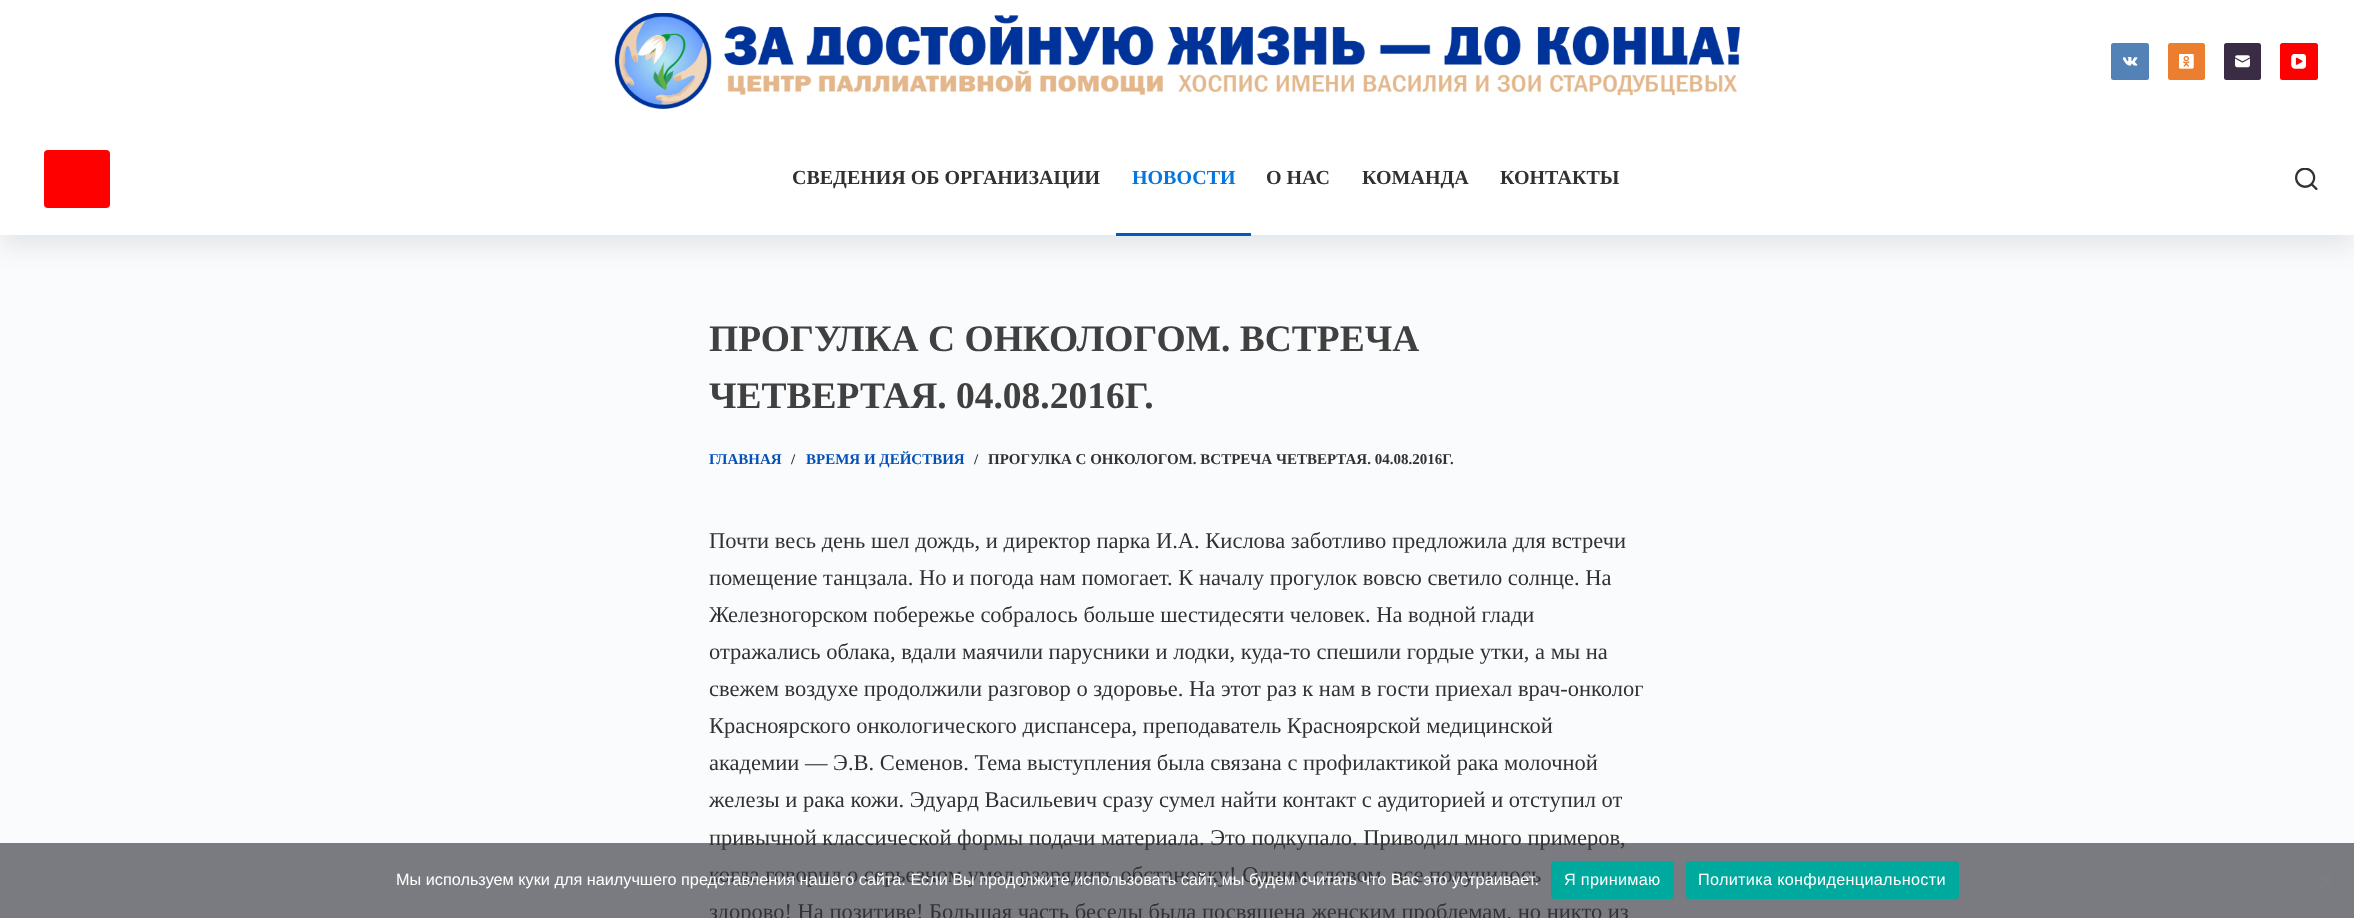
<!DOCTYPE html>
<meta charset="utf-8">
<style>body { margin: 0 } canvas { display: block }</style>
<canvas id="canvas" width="2354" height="918"></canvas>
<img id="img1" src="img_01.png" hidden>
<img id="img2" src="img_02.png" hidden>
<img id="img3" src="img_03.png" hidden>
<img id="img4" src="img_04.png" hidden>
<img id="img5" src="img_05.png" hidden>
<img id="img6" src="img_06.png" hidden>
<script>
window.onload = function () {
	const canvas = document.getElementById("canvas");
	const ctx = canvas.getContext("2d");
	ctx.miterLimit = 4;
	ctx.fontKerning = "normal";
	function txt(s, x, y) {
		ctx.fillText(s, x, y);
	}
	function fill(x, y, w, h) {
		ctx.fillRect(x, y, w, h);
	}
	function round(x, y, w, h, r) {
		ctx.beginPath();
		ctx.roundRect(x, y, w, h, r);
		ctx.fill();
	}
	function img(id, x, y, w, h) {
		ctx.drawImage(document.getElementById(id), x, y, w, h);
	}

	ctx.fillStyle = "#FAFBFC";
	fill(0, 0, 2354, 918);
	ctx.fillStyle = "rgba(43, 61, 79, 0.1)";
	ctx.filter = "blur(12.5px)";
	ctx.beginPath();
	ctx.rect(0, 134, 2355, 114);
	ctx.fill();
	ctx.filter = "none";
	ctx.fillStyle = "#FFFFFF";
	fill(0, 0, 2354, 235);
	img("img1", 614, 13, 1126, 96);
	ctx.fillStyle = "#5382B6";
	round(2111, 43, 38, 37, 2.5);
	img("img2", 2123, 57, 15, 9);
	ctx.fillStyle = "#EB7E2F";
	round(2168, 43, 37, 37, 2.5);
	img("img3", 2179, 54, 15, 15);
	ctx.fillStyle = "#392C44";
	round(2224, 43, 37, 37, 2.5);
	img("img4", 2235, 55, 15, 13);
	ctx.fillStyle = "#FF0000";
	round(2280, 43, 38, 37, 2.5);
	img("img5", 2291, 54, 15, 15);
	round(44, 150, 66, 58, 4);
	ctx.fillStyle = "#045ABA";
	fill(1116, 233, 135, 3);
	img("img6", 2295, 168, 23, 22);
	ctx.font = "bold 20px Liberation Serif";
	ctx.fillStyle = "#313131";
	txt("СВЕДЕНИЯ ОБ ОРГАНИЗАЦИИ", 792, 184);
	ctx.fillStyle = "#0476DE";
	txt("НОВОСТИ", 1132, 184);
	ctx.fillStyle = "#313131";
	txt("О НАС", 1266, 184);
	txt("КОМАНДА", 1362, 184);
	txt("КОНТАКТЫ", 1500, 184);
	ctx.font = "bold 37.5px Liberation Serif";
	ctx.fillStyle = "#404040";
	txt("ПРОГУЛКА С ОНКОЛОГОМ. ВСТРЕЧА", 709, 351);
	txt("ЧЕТВЕРТАЯ. 04.08.2016Г.", 709, 408);
	ctx.font = "bold 15px Liberation Serif";
	ctx.fillStyle = "#0451BA";
	txt("ГЛАВНАЯ", 709, 464);
	ctx.fillStyle = "#313131";
	txt("/", 791, 464);
	ctx.fillStyle = "#0451BA";
	txt("ВРЕМЯ И ДЕЙСТВИЯ", 806, 464);
	ctx.fillStyle = "#313131";
	txt("/", 974, 464);
	txt("ПРОГУЛКА С ОНКОЛОГОМ. ВСТРЕЧА ЧЕТВЕРТАЯ. 04.08.2016Г.", 988, 464);
	ctx.font = "22.5px Liberation Serif";
	txt("Почти весь день шел дождь, и директор парка И.А. Кислова заботливо предложила для встречи", 709, 548);
	txt("помещение танцзала. Но и погода нам помогает. К началу прогулок вовсю светило солнце. На", 709, 585);
	txt("Железногорском побережье собралось больше шестидесяти человек. На водной глади", 709, 622);
	txt("отражались облака, вдали маячили парусники и лодки, куда-то спешили гордые утки, а мы на", 709, 659);
	txt("свежем воздухе продолжили разговор о здоровье. На этот раз к нам в гости приехал врач-онколог", 709, 696);
	txt("Красноярского онкологического диспансера, преподаватель Красноярской медицинской", 709, 733);
	txt("академии — Э.В. Семенов. Тема выступления была связана с профилактикой рака молочной", 709, 770);
	txt("железы и рака кожи. Эдуард Васильевич сразу сумел найти контакт с аудиторией и отступил от", 709, 807);
	txt("привычной классической формы подачи материала. Это подкупало. Приводил много примеров,", 709, 845);
	txt("когда говорил о серьезном умел разрядить обстановку! Одним словом, все получилось", 709, 882);
	txt("здорово! На позитиве! Большая часть беседы была посвящена женским проблемам, но никто из", 709, 919);
	ctx.fillStyle = "rgba(50, 50, 58, 0.64)";
	fill(0, 843, 2354, 75);
	ctx.font = "16.25px Liberation Sans";
	ctx.fillStyle = "#FFFFFF";
	txt("Мы используем куки для наилучшего представления нашего сайта. Если Вы продолжите использовать сайт, мы будем считать что Вас это устраивает.", 396, 885);
	ctx.fillStyle = "#00A99D";
	round(1551, 861, 123, 38, 4);
	ctx.letterSpacing = "0.3px";
	ctx.fillStyle = "#FFFFFF";
	txt("Я принимаю", 1564, 885);
	ctx.fillStyle = "#00A99D";
	round(1686, 861, 273, 38, 4);
	ctx.fillStyle = "#FFFFFF";
	txt("Политика конфиденциальности", 1698, 885);
	ctx.fillStyle = "#7D7D80";
	ctx.beginPath();
	ctx.moveTo(2330.5, 873.5);
	ctx.lineTo(2332.5, 875);
	ctx.lineTo(2319.5, 888.5);
	ctx.lineTo(2317.5, 886.5);
	ctx.closePath();
	ctx.fill();
	ctx.beginPath();
	ctx.moveTo(2317.5, 875);
	ctx.lineTo(2319.5, 873.5);
	ctx.lineTo(2332.5, 886.5);
	ctx.lineTo(2330.5, 888.5);
	ctx.closePath();
	ctx.fill();
};
</script>
